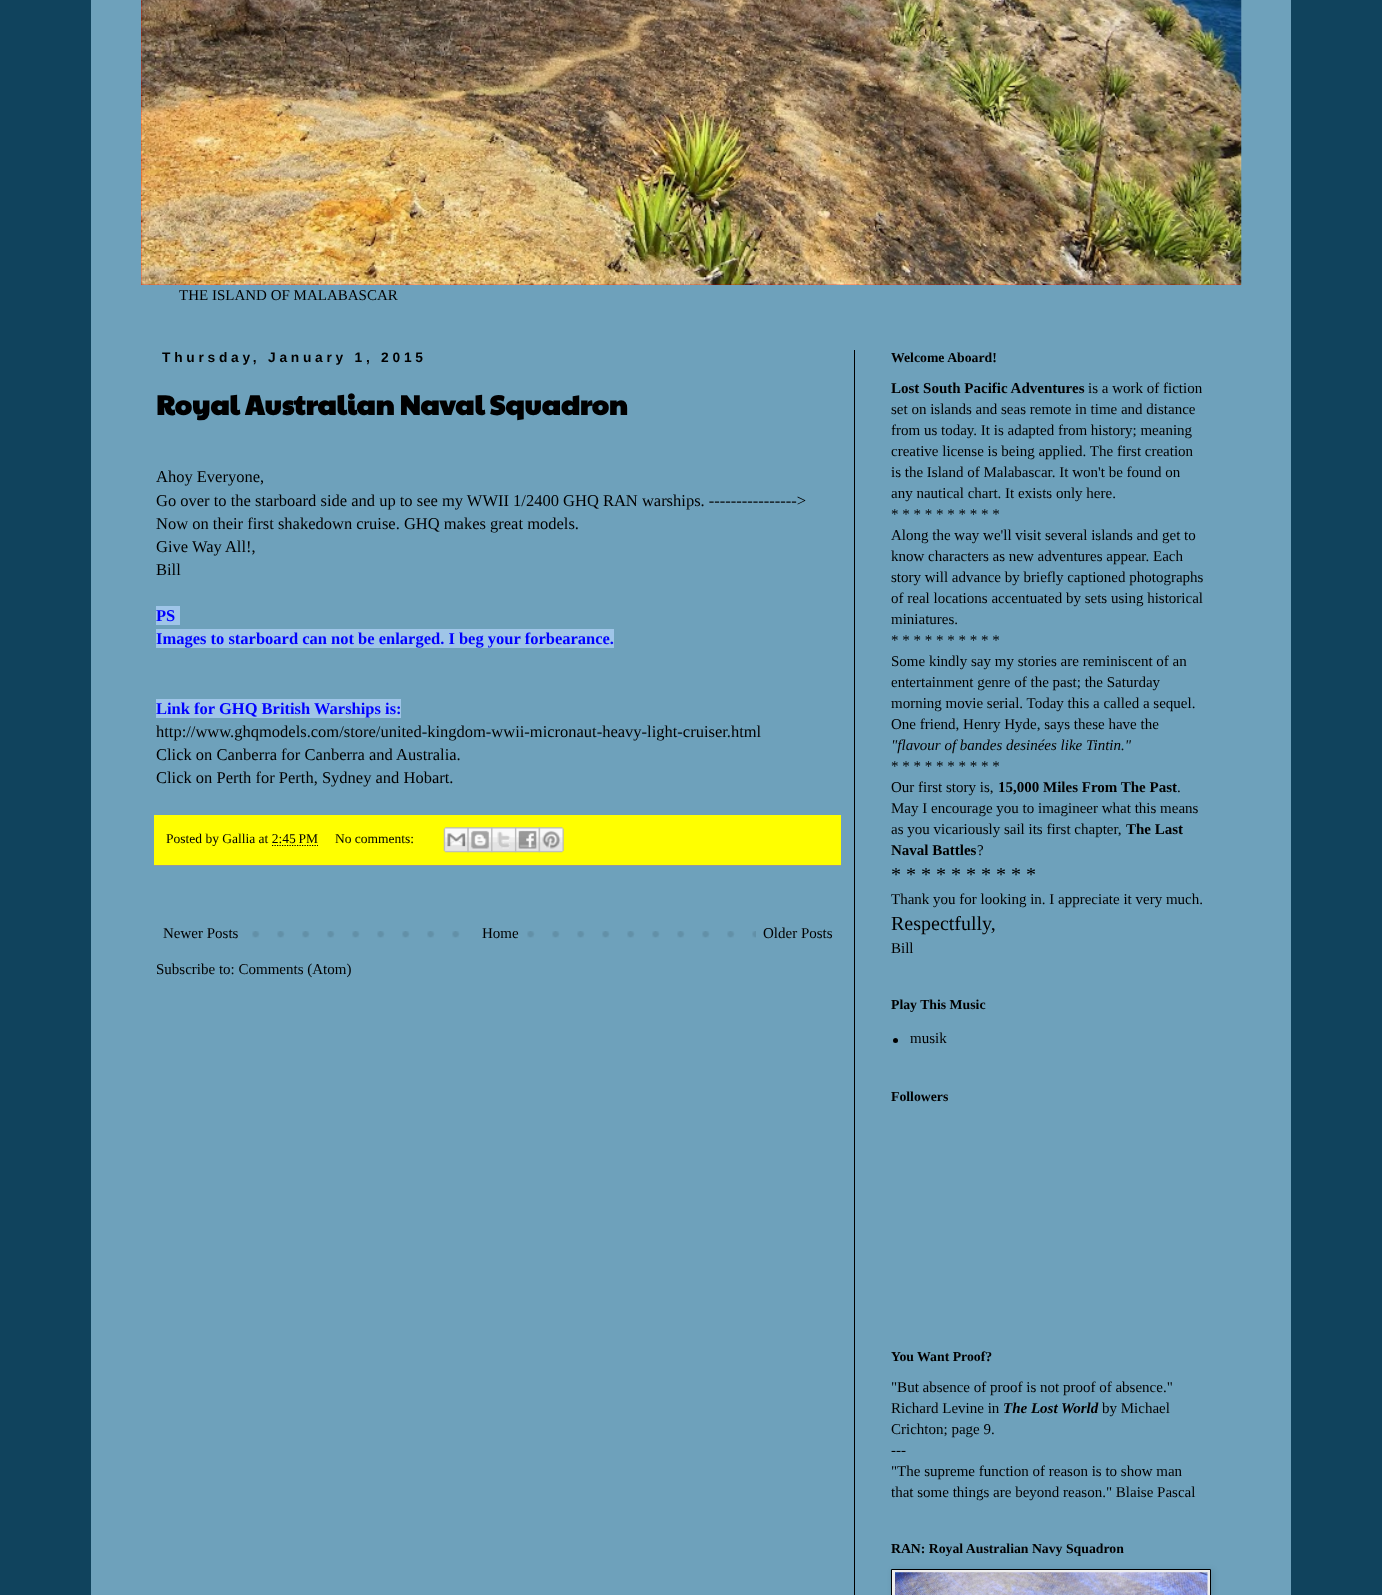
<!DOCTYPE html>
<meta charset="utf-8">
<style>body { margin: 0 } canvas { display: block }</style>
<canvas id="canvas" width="1382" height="1595"></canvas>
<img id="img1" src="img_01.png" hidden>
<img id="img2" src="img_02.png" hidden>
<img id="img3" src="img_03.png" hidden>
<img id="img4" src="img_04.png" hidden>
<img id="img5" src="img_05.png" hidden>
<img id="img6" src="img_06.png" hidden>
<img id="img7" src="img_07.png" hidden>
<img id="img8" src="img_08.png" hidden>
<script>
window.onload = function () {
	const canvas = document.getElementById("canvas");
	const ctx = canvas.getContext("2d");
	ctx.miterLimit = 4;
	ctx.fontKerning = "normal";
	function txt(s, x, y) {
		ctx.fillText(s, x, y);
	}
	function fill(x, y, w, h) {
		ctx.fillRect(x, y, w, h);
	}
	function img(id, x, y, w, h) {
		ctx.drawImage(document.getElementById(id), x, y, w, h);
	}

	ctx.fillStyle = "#10435D";
	fill(0, 0, 1382, 1595);
	ctx.fillStyle = "#6EA1BB";
	fill(91, 0, 1200, 1595);
	ctx.fillStyle = "#FF0000";
	fill(141, 0, 1100, 285);
	img("img1", 141, 0, 1101, 285);
	ctx.fillStyle = "#000000";
	fill(854, 350, 1, 1245);
	ctx.fillStyle = "#9FC5E8";
	fill(156, 606, 24, 19);
	fill(156, 629, 458, 19);
	fill(156, 699, 245, 19);
	ctx.fillStyle = "#FFFF00";
	fill(154, 815, 687, 50);
	ctx.fillStyle = "#999999";
	fill(154, 865, 687, 1);
	img("img2", 443, 827, 26, 26);
	img("img3", 467, 827, 26, 26);
	img("img4", 491, 827, 26, 26);
	img("img5", 515, 827, 25, 26);
	img("img6", 538, 827, 26, 26);
	ctx.beginPath();
	ctx.moveTo(272, 845.5);
	ctx.lineTo(318, 845.5);
	ctx.strokeStyle = "#000000";
	ctx.lineWidth = 1.2;
	ctx.setLineDash([1.25, 1.25]);
	ctx.stroke();
	img("img7", 252, 931, 504, 7);
	ctx.fillStyle = "#6EA1BB";
	fill(477, 931, 32, 7);
	ctx.fillStyle = "#000000";
	ctx.beginPath();
	ctx.arc(895.5, 1040.5, 2.5, 0, Math.PI * 2);
	ctx.fill();
	ctx.fillStyle = "rgba(0, 0, 0, 0.1)";
	ctx.filter = "blur(3px)";
	ctx.beginPath();
	ctx.rect(893, 1570, 320, 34);
	ctx.fill();
	ctx.filter = "none";
	ctx.fillStyle = "#EEEEEE";
	ctx.beginPath();
	ctx.rect(891.5, 1569.5, 319, 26);
	ctx.fill();
	ctx.lineWidth = 1;
	ctx.setLineDash([]);
	ctx.stroke();
	img("img8", 895, 1572, 313, 23);
	ctx.font = "15px Liberation Serif";
	ctx.fillStyle = "#000000";
	txt("THE ISLAND OF MALABASCAR", 179, 300);
	ctx.letterSpacing = "3.75px";
	ctx.font = "bold 13.75px Liberation Sans";
	txt("Thursday, January 1, 2015", 162, 362);
	ctx.letterSpacing = "0px";
	ctx.font = "bold 27.5px Paytone One";
	txt("Royal Australian Naval Squadron", 156, 415);
	ctx.font = "16.5px Liberation Serif";
	txt("Ahoy Everyone,", 156, 482);
	txt("Go over to the starboard side and up to see my WWII 1/2400 GHQ RAN warships. ---------------->", 156, 506);
	txt("Now on their first shakedown cruise. GHQ makes great models.", 156, 529);
	txt("Give Way All!,", 156, 552);
	txt("Bill", 156, 575);
	ctx.font = "bold 16.5px Liberation Serif";
	ctx.fillStyle = "#0000FF";
	txt("PS", 156, 621);
	txt("Images to starboard can not be enlarged. I beg your forbearance.", 156, 644);
	txt("Link for GHQ British Warships is:", 156, 714);
	ctx.font = "16.5px Liberation Serif";
	ctx.fillStyle = "#000000";
	txt("http://www.ghqmodels.com/store/united-kingdom-wwii-micronaut-heavy-light-cruiser.html", 156, 737);
	txt("Click on Canberra for Canberra and Australia.", 156, 760);
	txt("Click on Perth for Perth, Sydney and Hobart.", 156, 783);
	ctx.font = "13.5px Liberation Serif";
	txt("Posted by Gallia at 2:45 PM", 166, 843);
	txt("No comments:", 335, 843);
	ctx.font = "15px Liberation Serif";
	txt("Newer Posts", 163, 938);
	txt("Home", 482, 938);
	txt("Older Posts", 763, 938);
	txt("Subscribe to: Comments (Atom)", 156, 974);
	ctx.font = "bold 13.75px Liberation Serif";
	txt("Welcome Aboard!", 891, 362);
	ctx.font = "bold 15px Liberation Serif";
	txt("Lost South Pacific Adventures", 891, 393);
	ctx.font = "15px Liberation Serif";
	txt("is a work of fiction", 1088, 393);
	txt("set on islands and seas remote in time and distance", 891, 414);
	txt("from us today. It is adapted from history; meaning", 891, 435);
	txt("creative license is being applied. The first creation", 891, 456);
	txt("is the Island of Malabascar. It won't be found on", 891, 477);
	txt("any nautical chart. It exists only here.", 891, 498);
	txt("* * * * * * * * * *", 891, 519);
	txt("Along the way we'll visit several islands and get to", 891, 540);
	txt("know characters as new adventures appear. Each", 891, 561);
	txt("story will advance by briefly captioned photographs", 891, 582);
	txt("of real locations accentuated by sets using historical", 891, 603);
	txt("miniatures.", 891, 624);
	txt("* * * * * * * * * *", 891, 645);
	txt("Some kindly say my stories are reminiscent of an", 891, 666);
	txt("entertainment genre of the past; the Saturday", 891, 687);
	txt("morning movie serial. Today this a called a sequel.", 891, 708);
	txt("One friend, Henry Hyde, says these have the", 891, 729);
	ctx.font = "italic 15px Liberation Serif";
	txt("\"flavour of bandes desinées like Tintin.\"", 891, 750);
	ctx.font = "15px Liberation Serif";
	txt("* * * * * * * * * *", 891, 771);
	txt("Our first story is,", 891, 792);
	ctx.font = "bold 15px Liberation Serif";
	txt("15,000 Miles From The Past", 998, 792);
	ctx.font = "15px Liberation Serif";
	txt(".", 1177, 792);
	txt("May I encourage you to imagineer what this means", 891, 813);
	txt("as you vicariously sail its first chapter,", 891, 834);
	ctx.font = "bold 15px Liberation Serif";
	txt("The Last", 1126, 834);
	txt("Naval Battles", 891, 855);
	ctx.font = "15px Liberation Serif";
	txt("?", 977, 855);
	ctx.font = "20px Liberation Serif";
	txt("* * * * * * * * * *", 891, 881);
	ctx.font = "15px Liberation Serif";
	txt("Thank you for looking in. I appreciate it very much.", 891, 904);
	ctx.font = "20px Liberation Serif";
	txt("Respectfully,", 891, 930);
	ctx.font = "15px Liberation Serif";
	txt("Bill", 891, 953);
	ctx.font = "bold 13.75px Liberation Serif";
	txt("Play This Music", 891, 1009);
	ctx.font = "15px Liberation Serif";
	txt("musik", 910, 1043);
	ctx.font = "bold 13.75px Liberation Serif";
	txt("Followers", 891, 1101);
	txt("You Want Proof?", 891, 1361);
	ctx.font = "15px Liberation Serif";
	txt("\"But absence of proof is not proof of absence.\"", 891, 1392);
	txt("Richard Levine in", 891, 1413);
	ctx.font = "italic bold 15px Liberation Serif";
	txt("The Lost World", 1003, 1413);
	ctx.font = "15px Liberation Serif";
	txt("by Michael", 1102, 1413);
	txt("Crichton; page 9.", 891, 1434);
	txt("---", 891, 1455);
	txt("\"The supreme function of reason is to show man", 891, 1476);
	txt("that some things are beyond reason.\" Blaise Pascal", 891, 1497);
	ctx.font = "bold 13.75px Liberation Serif";
	txt("RAN: Royal Australian Navy Squadron", 891, 1553);
};
</script>
